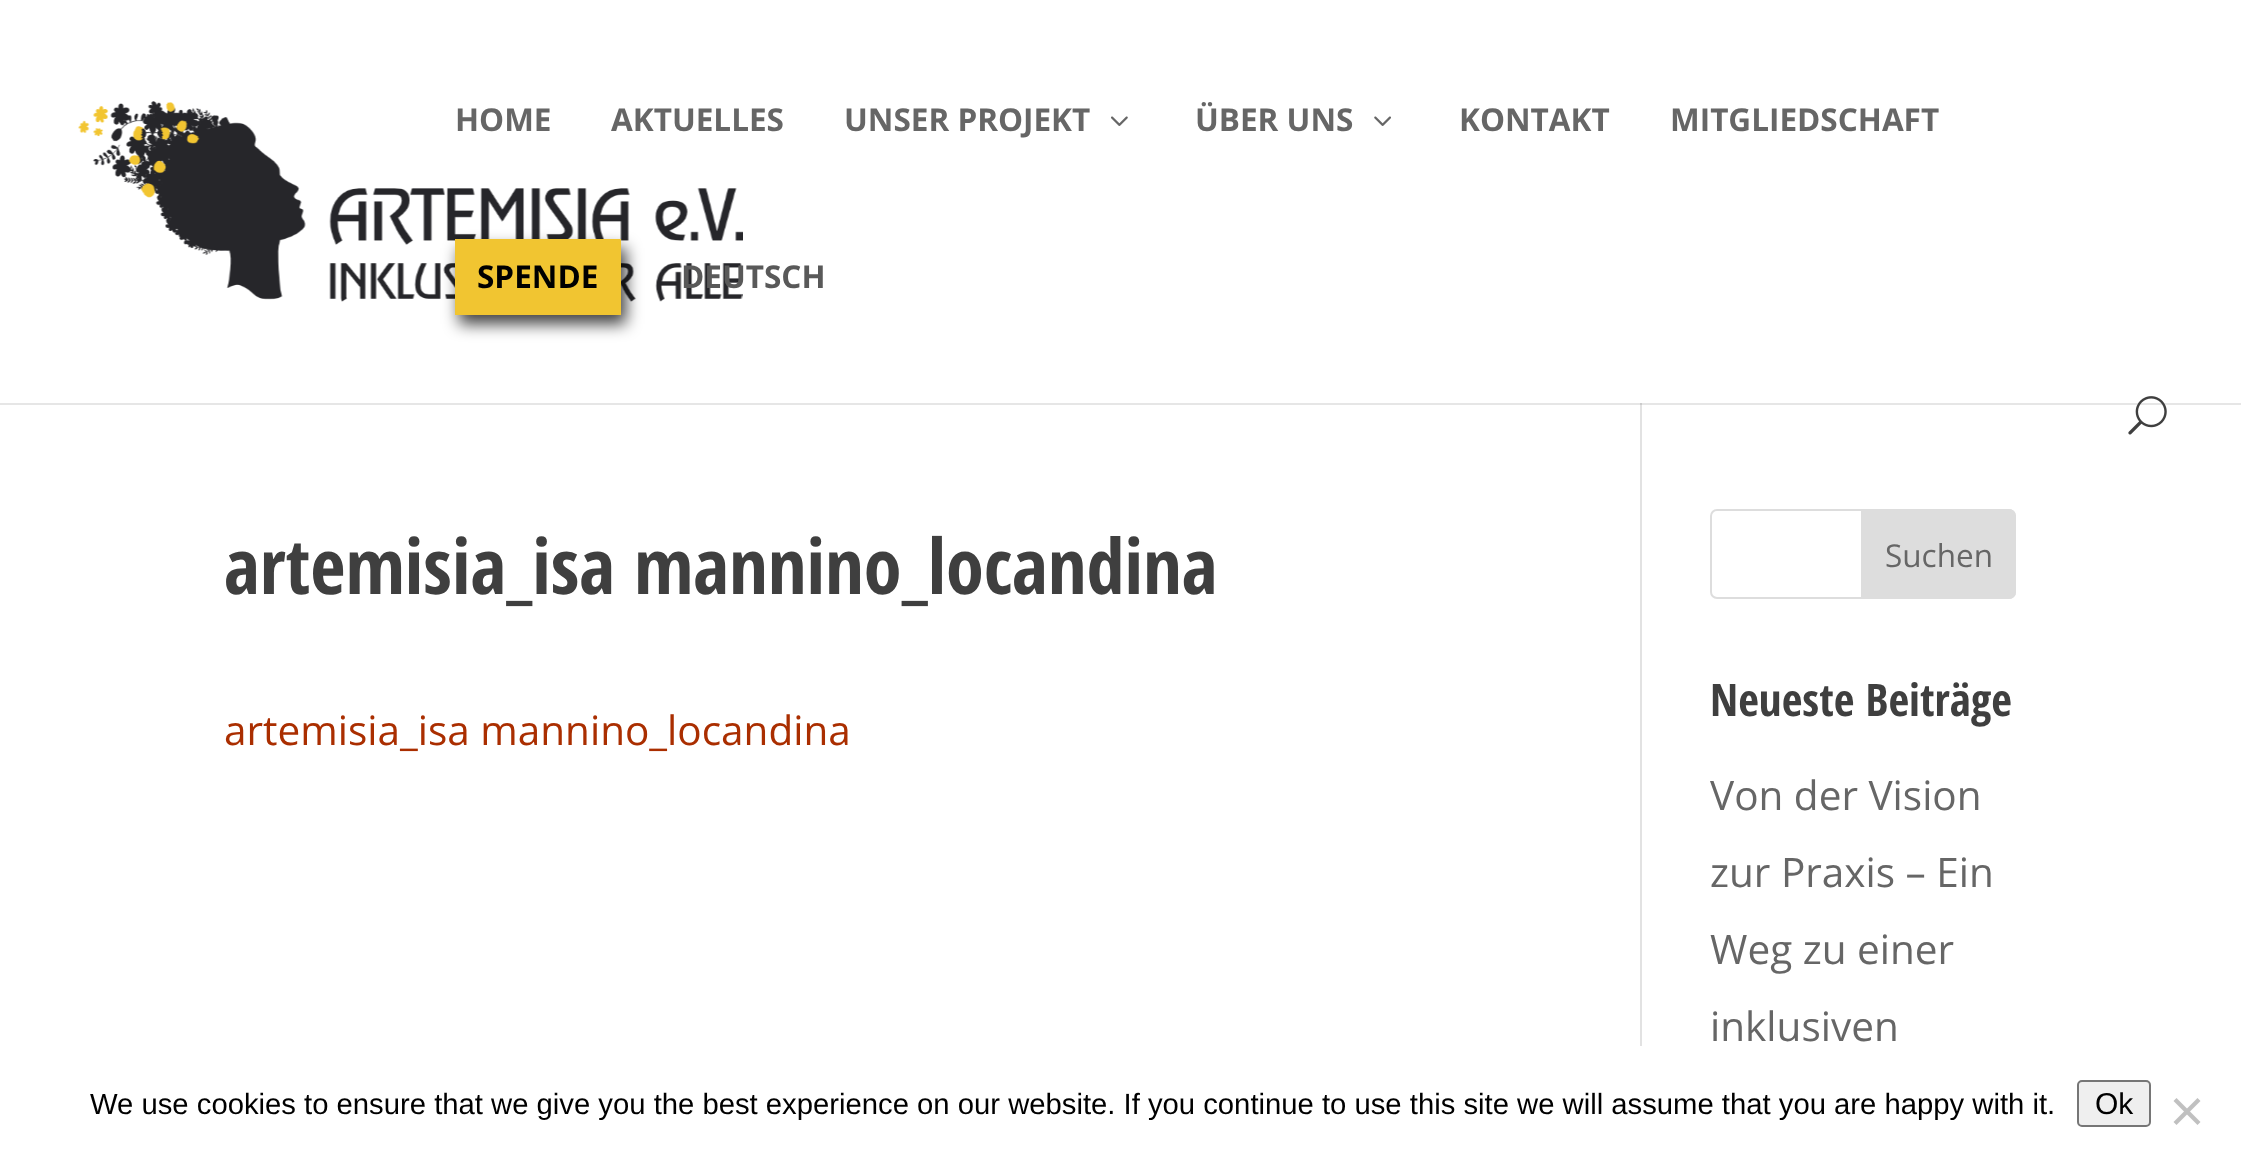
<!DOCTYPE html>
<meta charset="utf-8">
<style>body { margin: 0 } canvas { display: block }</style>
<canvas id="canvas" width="2241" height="1174"></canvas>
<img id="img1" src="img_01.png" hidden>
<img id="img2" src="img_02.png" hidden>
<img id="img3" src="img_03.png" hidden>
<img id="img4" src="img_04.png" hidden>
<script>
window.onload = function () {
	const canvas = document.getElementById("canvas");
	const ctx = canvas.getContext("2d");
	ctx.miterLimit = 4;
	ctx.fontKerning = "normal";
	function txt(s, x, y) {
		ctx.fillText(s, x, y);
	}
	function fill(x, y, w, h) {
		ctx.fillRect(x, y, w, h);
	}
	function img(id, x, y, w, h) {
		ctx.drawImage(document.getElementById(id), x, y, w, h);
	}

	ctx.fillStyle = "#FFFFFF";
	fill(0, 0, 2241, 1174);
	ctx.fillStyle = "#E6E6E6";
	fill(0, 403, 2241, 2);
	img("img1", 78, 101, 665, 201);
	img("img2", 1111, 116, 17, 10);
	img("img3", 1374, 116, 17, 10);
	ctx.fillStyle = "rgba(0, 0, 0, 0.75)";
	ctx.filter = "blur(8px)";
	ctx.beginPath();
	ctx.rect(459, 248, 167, 76);
	ctx.fill();
	ctx.filter = "none";
	ctx.fillStyle = "#F1C531";
	fill(455, 239, 166, 76);
	img("img4", 2128, 396, 39, 39);
	ctx.fillStyle = "#E2E2E2";
	fill(1640, 405, 2, 641);
	ctx.fillStyle = "#CBCBCB";
	fill(1640, 403, 2, 2);
	ctx.beginPath();
	ctx.roundRect(1711, 510, 304, 88, 6);
	ctx.strokeStyle = "#DDDDDD";
	ctx.lineWidth = 2;
	ctx.stroke();
	ctx.fillStyle = "#DDDDDD";
	ctx.beginPath();
	ctx.roundRect(1862, 510, 153, 88, [0, 6, 6, 0]);
	ctx.fill();
	ctx.stroke();
	ctx.fillStyle = "#EFEFEF";
	ctx.beginPath();
	ctx.roundRect(2078, 1081, 72, 45, 4);
	ctx.fill();
	ctx.strokeStyle = "#767676";
	ctx.stroke();
	ctx.fillStyle = "#C0C0C0";
	ctx.beginPath();
	ctx.moveTo(2197.5, 1098);
	ctx.lineTo(2200.5, 1101);
	ctx.lineTo(2176.5, 1125);
	ctx.lineTo(2173.5, 1122);
	ctx.closePath();
	ctx.fill();
	ctx.beginPath();
	ctx.moveTo(2173.5, 1101);
	ctx.lineTo(2176.5, 1098);
	ctx.lineTo(2200.5, 1122);
	ctx.lineTo(2197.5, 1125);
	ctx.closePath();
	ctx.fill();
	ctx.font = "bold 31.5px Open Sans";
	ctx.fillStyle = "#666666";
	txt("HOME", 455, 131);
	txt("AKTUELLES", 611, 131);
	txt("UNSER PROJEKT", 844, 131);
	txt("ÜBER UNS", 1195, 131);
	txt("KONTAKT", 1459, 131);
	txt("MITGLIEDSCHAFT", 1670, 131);
	ctx.fillStyle = "#000000";
	txt("SPENDE", 477, 288);
	ctx.fillStyle = "#595959";
	txt("DEUTSCH", 681, 288);
	ctx.font = "bold 76.5px Open Sans Condensed";
	ctx.fillStyle = "#3F3F3F";
	txt("artemisia_isa mannino_locandina", 224, 594);
	ctx.font = "40.5px Open Sans";
	ctx.fillStyle = "#AA2E00";
	txt("artemisia_isa mannino_locandina", 224, 745);
	ctx.font = "31.5px Open Sans";
	ctx.fillStyle = "#666666";
	txt("Suchen", 1885, 567);
	ctx.font = "bold 45px Open Sans Condensed";
	ctx.fillStyle = "#3F3F3F";
	txt("Neueste Beiträge", 1710, 716);
	ctx.font = "40.5px Open Sans";
	ctx.fillStyle = "#666666";
	txt("Von der Vision", 1710, 810);
	txt("zur Praxis – Ein", 1710, 887);
	txt("Weg zu einer", 1710, 964);
	txt("inklusiven", 1710, 1041);
	ctx.font = "29.25px Liberation Sans";
	ctx.fillStyle = "#000000";
	txt("We use cookies to ensure that we give you the best experience on our website. If you continue to use this site we will assume that you are happy with it.", 90, 1114);
	ctx.font = "30px Liberation Sans";
	txt("Ok", 2095, 1114);
};
</script>
